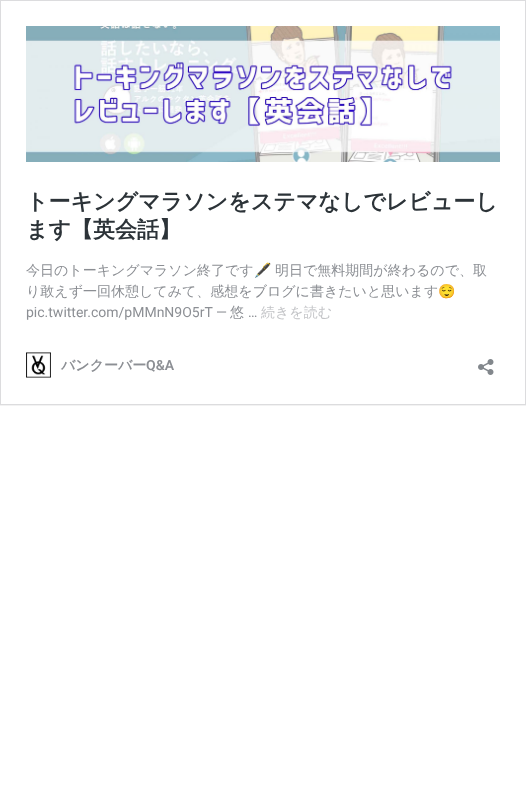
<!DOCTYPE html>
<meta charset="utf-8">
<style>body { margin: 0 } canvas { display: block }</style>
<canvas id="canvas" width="526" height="807"></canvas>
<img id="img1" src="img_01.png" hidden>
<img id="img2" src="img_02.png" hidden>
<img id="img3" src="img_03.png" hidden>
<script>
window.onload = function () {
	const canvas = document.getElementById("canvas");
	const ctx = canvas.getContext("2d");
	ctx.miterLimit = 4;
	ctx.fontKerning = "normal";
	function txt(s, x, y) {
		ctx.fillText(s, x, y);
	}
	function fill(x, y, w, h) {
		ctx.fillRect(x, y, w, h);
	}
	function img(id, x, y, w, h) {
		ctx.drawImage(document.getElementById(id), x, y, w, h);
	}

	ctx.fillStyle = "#FFFFFF";
	fill(0, 0, 526, 807);
	ctx.save();
	ctx.beginPath();
	ctx.rect(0, 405, 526, 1);
	ctx.clip();
	ctx.fillStyle = "rgba(0, 0, 0, 0.05)";
	ctx.filter = "blur(0.5px)";
	ctx.beginPath();
	ctx.rect(0, 1, 526, 405);
	ctx.fill();
	ctx.filter = "none";
	ctx.restore();
	ctx.strokeStyle = "#DCDCDE";
	ctx.strokeRect(0.5, 0.5, 525, 404);
	img("img1", 26, 26, 474, 136);
	img("img2", 26, 352, 25, 26);
	img("img3", 478, 359, 16, 16);
	ctx.font = "bold 22px WenQuanYi Zen Hei";
	ctx.fillStyle = "#2C3338";
	txt("トーキングマラソンをステマなしでレビューし", 26, 209);
	txt("ます【英会話】", 26, 237);
	ctx.font = "500 14px WenQuanYi Zen Hei";
	ctx.fillStyle = "#8C8F94";
	txt("今日のトーキングマラソン終了です", 26, 275);
	ctx.font = "14px Noto Color Emoji";
	txt("🖋", 254, 275);
	ctx.font = "500 14px WenQuanYi Zen Hei";
	txt("明日で無料期間が終わるので、取", 275, 275);
	txt("り敢えず一回休憩してみて、感想をブログに書きたいと思います", 26, 296);
	ctx.font = "14px Noto Color Emoji";
	txt("😌", 438, 296);
	ctx.font = "14px Roboto";
	txt("pic.twitter.com/pMMnN9O5rT —", 26, 317);
	ctx.font = "500 14px WenQuanYi Zen Hei";
	txt("悠", 230, 317);
	ctx.font = "14px Roboto";
	txt("…", 248, 317);
	ctx.font = "500 14px WenQuanYi Zen Hei";
	ctx.fillStyle = "#C3C4C7";
	txt("続きを読む", 261, 317);
	ctx.font = "bold 14px WenQuanYi Zen Hei";
	ctx.fillStyle = "#8C8F94";
	txt("バンクーバー", 61, 370);
	ctx.font = "600 14px Roboto";
	txt("Q&A", 146, 370);
};
</script>
